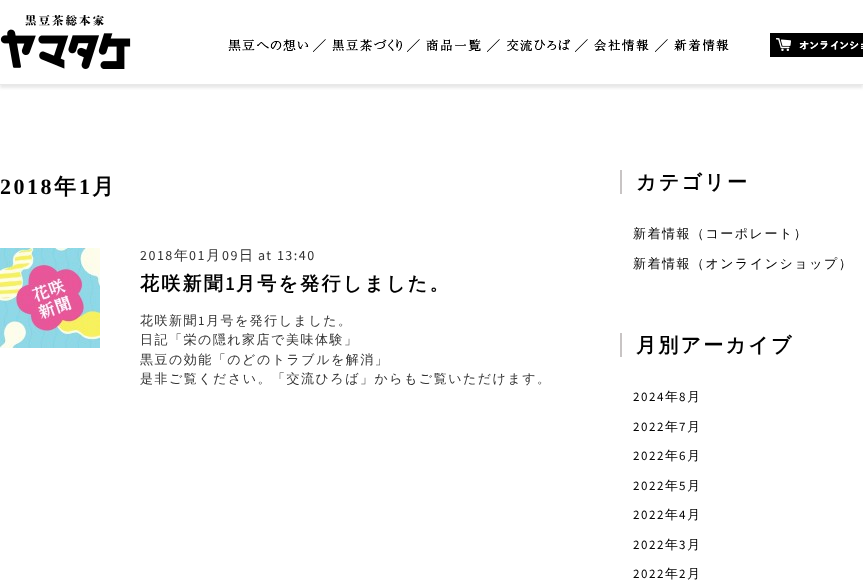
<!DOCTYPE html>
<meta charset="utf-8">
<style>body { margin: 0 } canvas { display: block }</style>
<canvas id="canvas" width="863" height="587"></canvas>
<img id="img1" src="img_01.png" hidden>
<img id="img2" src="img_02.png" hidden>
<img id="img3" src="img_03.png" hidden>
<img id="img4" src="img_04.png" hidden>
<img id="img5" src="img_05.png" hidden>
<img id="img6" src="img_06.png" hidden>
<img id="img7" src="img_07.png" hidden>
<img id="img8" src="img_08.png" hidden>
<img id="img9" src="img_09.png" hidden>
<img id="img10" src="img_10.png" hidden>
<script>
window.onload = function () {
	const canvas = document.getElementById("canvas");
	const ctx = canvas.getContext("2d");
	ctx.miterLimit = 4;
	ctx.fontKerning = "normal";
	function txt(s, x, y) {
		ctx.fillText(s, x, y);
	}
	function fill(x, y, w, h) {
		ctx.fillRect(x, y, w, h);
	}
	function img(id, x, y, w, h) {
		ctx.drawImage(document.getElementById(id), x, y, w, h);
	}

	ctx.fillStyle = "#FFFFFF";
	fill(0, 0, 863, 587);
	ctx.save();
	ctx.beginPath();
	ctx.rect(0, 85, 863, 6);
	ctx.clip();
	ctx.fillStyle = "#E8E8E8";
	ctx.filter = "blur(1.5px)";
	ctx.beginPath();
	ctx.rect(0, 3, 863, 85);
	ctx.fill();
	ctx.filter = "none";
	ctx.restore();
	ctx.fillStyle = "#E8E8E8";
	fill(0, 84, 863, 1);
	img("img1", 0, 15, 131, 54);
	img("img2", 228, 39, 81, 12);
	img("img3", 313, 39, 13, 13);
	img("img4", 332, 39, 70, 13);
	img("img3", 407, 39, 13, 13);
	img("img5", 426, 39, 55, 12);
	img("img3", 487, 39, 13, 13);
	img("img6", 507, 39, 64, 13);
	img("img3", 575, 39, 13, 13);
	img("img7", 594, 39, 55, 13);
	img("img3", 655, 39, 13, 13);
	img("img8", 674, 39, 55, 13);
	img("img9", 770, 33, 93, 24);
	img("img10", 0, 248, 100, 100);
	ctx.fillStyle = "#C8C4C4";
	fill(620, 170, 2, 24);
	fill(620, 333, 2, 24);
	ctx.letterSpacing = "2.5px";
	ctx.font = "bold 22px Liberation Serif";
	ctx.fillStyle = "#000000";
	txt("2018", 0, 194);
	ctx.font = "bold 22px WenQuanYi Zen Hei";
	txt("年", 54, 194);
	ctx.font = "bold 22px Liberation Serif";
	txt("1", 79, 194);
	ctx.font = "bold 22px WenQuanYi Zen Hei";
	txt("月", 92, 194);
	ctx.letterSpacing = "1.5px";
	ctx.font = "14px Source Sans Pro";
	ctx.fillStyle = "#333333";
	txt("2018", 140, 260);
	ctx.font = "500 14px WenQuanYi Zen Hei";
	txt("年", 174, 260);
	ctx.font = "14px Source Sans Pro";
	txt("01", 189, 260);
	ctx.font = "500 14px WenQuanYi Zen Hei";
	txt("月", 206, 260);
	ctx.font = "14px Source Sans Pro";
	txt("09", 222, 260);
	ctx.font = "500 14px WenQuanYi Zen Hei";
	txt("日", 239, 260);
	ctx.font = "14px Source Sans Pro";
	txt("at 13:40", 258, 260);
	ctx.letterSpacing = "2.25px";
	ctx.font = "bold 19px WenQuanYi Zen Hei";
	ctx.fillStyle = "#000000";
	txt("花咲新聞", 140, 290);
	ctx.font = "bold 19px Source Sans Pro";
	txt("1", 225, 290);
	ctx.font = "bold 19px WenQuanYi Zen Hei";
	txt("月号を発行しました。", 236, 290);
	ctx.letterSpacing = "1.5px";
	ctx.font = "500 13px WenQuanYi Zen Hei";
	ctx.fillStyle = "#333333";
	txt("花咲新聞", 140, 325);
	ctx.font = "13px Source Sans Pro";
	txt("1", 198, 325);
	ctx.font = "500 13px WenQuanYi Zen Hei";
	txt("月号を発行しました。", 206, 325);
	txt("日記「栄の隠れ家店で美味体験」", 140, 344);
	txt("黒豆の効能「のどのトラブルを解消」", 140, 364);
	txt("是非ご覧ください。「交流ひろば」からもご覧いただけます。", 140, 383);
	ctx.letterSpacing = "2.25px";
	ctx.font = "bold 20px WenQuanYi Zen Hei";
	ctx.fillStyle = "#000000";
	txt("カテゴリー", 636, 189);
	ctx.letterSpacing = "1.5px";
	ctx.font = "500 13px WenQuanYi Zen Hei";
	txt("新着情報（コーポレート）", 633, 238);
	txt("新着情報（オンラインショップ）", 633, 268);
	ctx.letterSpacing = "2.25px";
	ctx.font = "bold 20px WenQuanYi Zen Hei";
	txt("月別アーカイブ", 636, 352);
	ctx.letterSpacing = "1.5px";
	ctx.font = "13px Source Sans Pro";
	txt("2024", 633, 401);
	ctx.font = "500 13px WenQuanYi Zen Hei";
	txt("年", 665, 401);
	ctx.font = "13px Source Sans Pro";
	txt("8", 679, 401);
	ctx.font = "500 13px WenQuanYi Zen Hei";
	txt("月", 687, 401);
	ctx.font = "13px Source Sans Pro";
	txt("2022", 633, 431);
	ctx.font = "500 13px WenQuanYi Zen Hei";
	txt("年", 665, 431);
	ctx.font = "13px Source Sans Pro";
	txt("7", 679, 431);
	ctx.font = "500 13px WenQuanYi Zen Hei";
	txt("月", 687, 431);
	ctx.font = "13px Source Sans Pro";
	txt("2022", 633, 460);
	ctx.font = "500 13px WenQuanYi Zen Hei";
	txt("年", 665, 460);
	ctx.font = "13px Source Sans Pro";
	txt("6", 679, 460);
	ctx.font = "500 13px WenQuanYi Zen Hei";
	txt("月", 687, 460);
	ctx.font = "13px Source Sans Pro";
	txt("2022", 633, 490);
	ctx.font = "500 13px WenQuanYi Zen Hei";
	txt("年", 665, 490);
	ctx.font = "13px Source Sans Pro";
	txt("5", 679, 490);
	ctx.font = "500 13px WenQuanYi Zen Hei";
	txt("月", 687, 490);
	ctx.font = "13px Source Sans Pro";
	txt("2022", 633, 519);
	ctx.font = "500 13px WenQuanYi Zen Hei";
	txt("年", 665, 519);
	ctx.font = "13px Source Sans Pro";
	txt("4", 679, 519);
	ctx.font = "500 13px WenQuanYi Zen Hei";
	txt("月", 687, 519);
	ctx.font = "13px Source Sans Pro";
	txt("2022", 633, 549);
	ctx.font = "500 13px WenQuanYi Zen Hei";
	txt("年", 665, 549);
	ctx.font = "13px Source Sans Pro";
	txt("3", 679, 549);
	ctx.font = "500 13px WenQuanYi Zen Hei";
	txt("月", 687, 549);
	ctx.font = "13px Source Sans Pro";
	txt("2022", 633, 578);
	ctx.font = "500 13px WenQuanYi Zen Hei";
	txt("年", 665, 578);
	ctx.font = "13px Source Sans Pro";
	txt("2", 679, 578);
	ctx.font = "500 13px WenQuanYi Zen Hei";
	txt("月", 687, 578);
};
</script>
